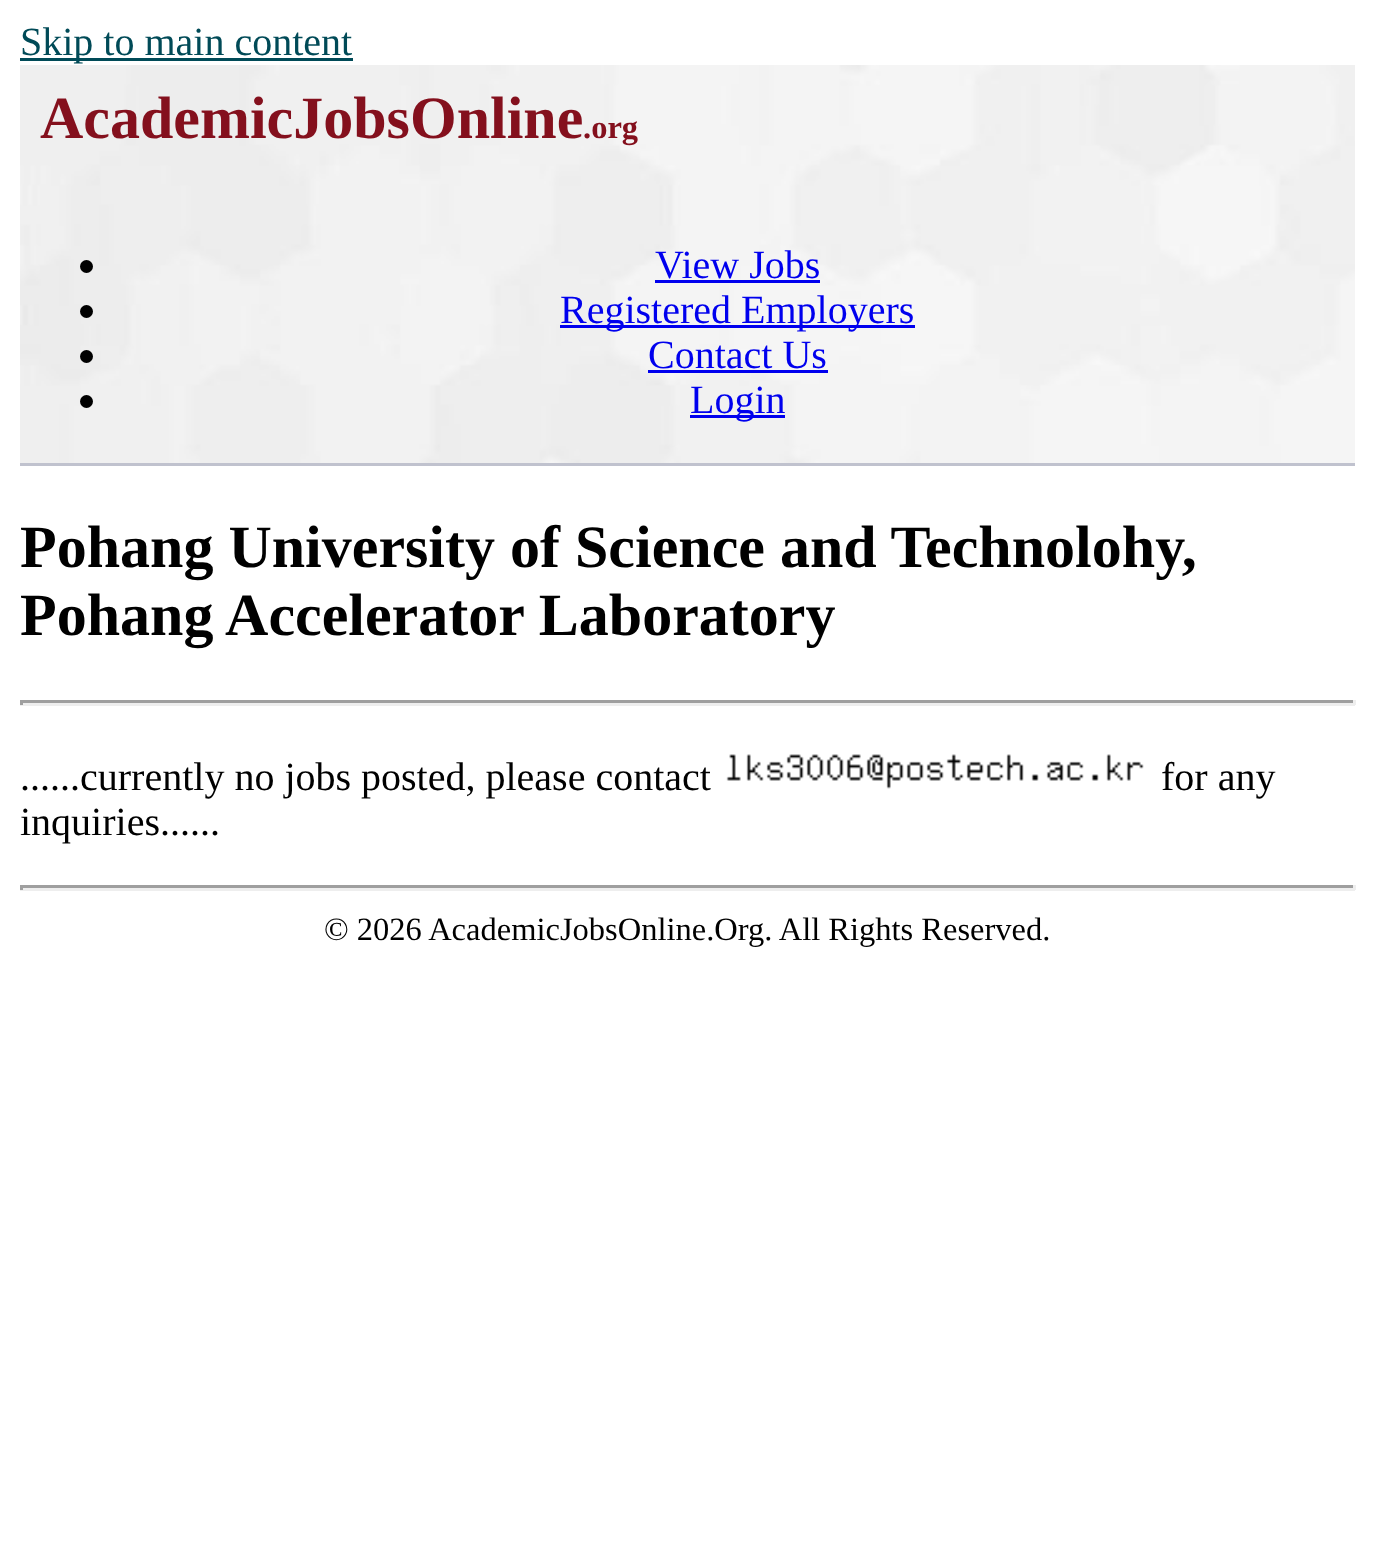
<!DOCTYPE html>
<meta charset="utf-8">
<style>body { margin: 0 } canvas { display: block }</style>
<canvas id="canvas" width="1374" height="1567"></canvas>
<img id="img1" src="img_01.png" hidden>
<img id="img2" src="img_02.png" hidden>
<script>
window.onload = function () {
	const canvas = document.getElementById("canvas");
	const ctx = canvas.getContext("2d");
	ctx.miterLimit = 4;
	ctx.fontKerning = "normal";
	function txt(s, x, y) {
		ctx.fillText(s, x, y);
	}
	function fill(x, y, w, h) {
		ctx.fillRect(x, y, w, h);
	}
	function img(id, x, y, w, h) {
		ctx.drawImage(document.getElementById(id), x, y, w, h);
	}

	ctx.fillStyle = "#FFFFFF";
	fill(0, 0, 1374, 1567);
	ctx.fillStyle = "#004A57";
	fill(20, 58, 333, 3);
	img("img1", 20, 65, 1335, 398);
	ctx.fillStyle = "#000000";
	ctx.beginPath();
	ctx.arc(86.5, 266.5, 6.5, 0, Math.PI * 2);
	ctx.fill();
	ctx.fillStyle = "#0000EE";
	fill(655, 280, 165, 3);
	ctx.fillStyle = "#000000";
	ctx.beginPath();
	ctx.arc(86.5, 311.5, 6.5, 0, Math.PI * 2);
	ctx.fill();
	ctx.fillStyle = "#0000EE";
	fill(560, 325, 355, 3);
	ctx.fillStyle = "#000000";
	ctx.beginPath();
	ctx.arc(86.5, 356.5, 6.5, 0, Math.PI * 2);
	ctx.fill();
	ctx.fillStyle = "#0000EE";
	fill(648, 370, 180, 3);
	ctx.fillStyle = "#000000";
	ctx.beginPath();
	ctx.arc(86.5, 401.5, 6.5, 0, Math.PI * 2);
	ctx.fill();
	ctx.fillStyle = "#0000EE";
	fill(690, 415, 95, 3);
	ctx.fillStyle = "#C0C2CE";
	fill(20, 463, 1335, 3);
	ctx.fillStyle = "#9F9F9F";
	fill(20, 700, 1335, 3);
	ctx.fillStyle = "#EEEEEE";
	fill(1353, 700, 3, 5);
	fill(20, 703, 1335, 3);
	ctx.fillStyle = "#9F9F9F";
	fill(20, 700, 3, 5);
	img("img2", 726, 754, 418, 35);
	fill(20, 885, 1335, 3);
	ctx.fillStyle = "#EEEEEE";
	fill(1353, 885, 3, 5);
	fill(20, 888, 1335, 3);
	ctx.fillStyle = "#9F9F9F";
	fill(20, 885, 3, 5);
	ctx.font = "40px Liberation Serif";
	ctx.fillStyle = "#004A57";
	txt("Skip to main content", 20, 55);
	ctx.font = "bold 60px Liberation Serif";
	ctx.fillStyle = "#84101D";
	txt("AcademicJobsOnline", 40, 138);
	ctx.font = "bold 32.5px Liberation Serif";
	txt(".org", 583, 138);
	ctx.font = "40px Liberation Serif";
	ctx.fillStyle = "#0000EE";
	txt("View Jobs", 655, 278);
	txt("Registered Employers", 560, 323);
	txt("Contact Us", 648, 368);
	txt("Login", 690, 413);
	ctx.font = "bold 60px Liberation Serif";
	ctx.fillStyle = "#000000";
	txt("Pohang University of Science and Technolohy,", 20, 567);
	txt("Pohang Accelerator Laboratory", 20, 635);
	ctx.font = "40px Liberation Serif";
	txt("......currently no jobs posted, please contact", 20, 790);
	txt("for any", 1161, 790);
	txt("inquiries......", 20, 835);
	ctx.font = "32.5px Liberation Serif";
	txt("© 2026 AcademicJobsOnline.Org. All Rights Reserved.", 324, 940);
};
</script>
